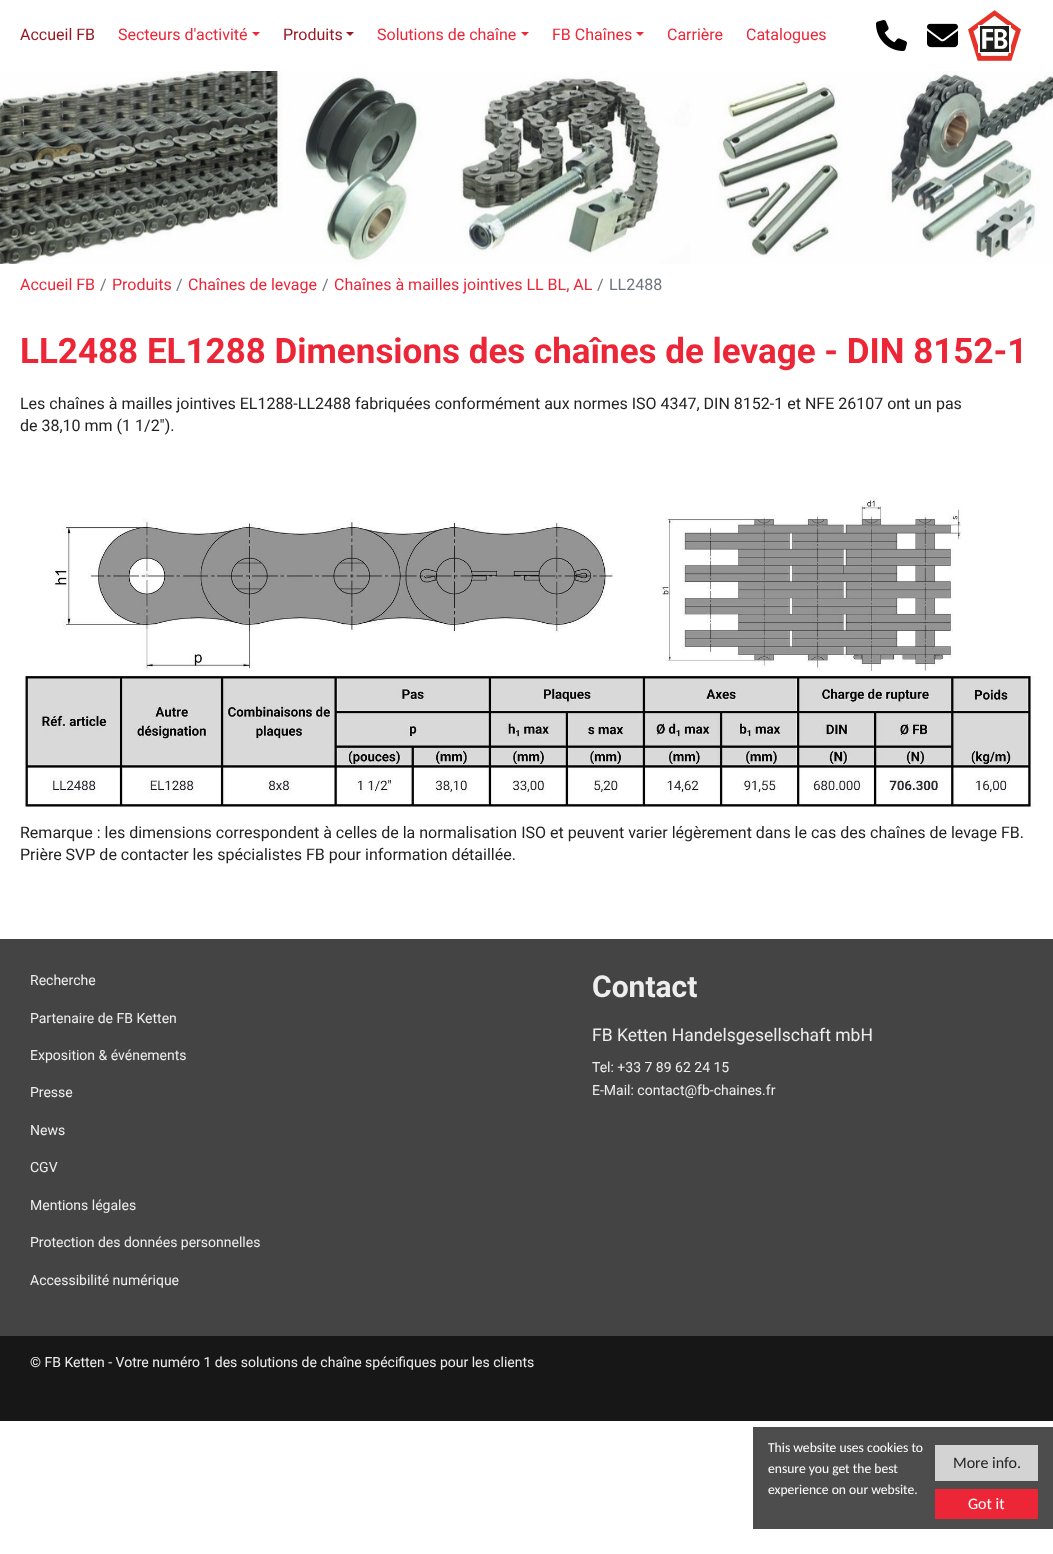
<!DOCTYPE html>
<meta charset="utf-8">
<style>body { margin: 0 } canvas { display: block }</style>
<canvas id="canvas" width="1053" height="1554"></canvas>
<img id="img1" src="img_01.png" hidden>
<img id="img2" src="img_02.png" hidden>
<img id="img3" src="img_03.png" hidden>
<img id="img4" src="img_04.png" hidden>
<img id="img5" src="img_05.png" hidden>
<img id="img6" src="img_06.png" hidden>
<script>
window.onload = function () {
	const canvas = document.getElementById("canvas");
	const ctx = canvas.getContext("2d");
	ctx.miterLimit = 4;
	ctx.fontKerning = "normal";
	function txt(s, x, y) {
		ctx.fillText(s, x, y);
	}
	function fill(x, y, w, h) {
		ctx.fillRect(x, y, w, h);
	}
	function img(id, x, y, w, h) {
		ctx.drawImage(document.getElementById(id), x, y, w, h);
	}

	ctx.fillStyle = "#FFFFFF";
	fill(0, 0, 1053, 1554);
	ctx.fillStyle = "#EC2637";
	ctx.beginPath();
	ctx.moveTo(252, 32);
	ctx.lineTo(260, 32);
	ctx.lineTo(256, 36);
	ctx.closePath();
	ctx.fill();
	ctx.fillStyle = "#971923";
	ctx.beginPath();
	ctx.moveTo(346, 32);
	ctx.lineTo(354, 32);
	ctx.lineTo(350, 36);
	ctx.closePath();
	ctx.fill();
	ctx.fillStyle = "#EC2637";
	ctx.beginPath();
	ctx.moveTo(521, 32);
	ctx.lineTo(529, 32);
	ctx.lineTo(525, 36);
	ctx.closePath();
	ctx.fill();
	ctx.beginPath();
	ctx.moveTo(636, 32);
	ctx.lineTo(644, 32);
	ctx.lineTo(640, 36);
	ctx.closePath();
	ctx.fill();
	img("img1", 876, 20, 31, 31);
	img("img2", 927, 23, 31, 25);
	img("img3", 968, 10, 53, 51);
	img("img4", 0, 71, 1053, 193);
	img("img5", 54, 497, 908, 174);
	img("img6", 24, 675, 1010, 132);
	ctx.fillStyle = "#444444";
	fill(0, 939, 1053, 397);
	ctx.fillStyle = "#171717";
	fill(0, 1336, 1053, 85);
	ctx.fillStyle = "#4D4D4D";
	fill(753, 1427, 300, 102);
	ctx.fillStyle = "#D3D3D3";
	fill(935, 1445, 103, 36);
	ctx.fillStyle = "#EC2637";
	fill(935, 1489, 103, 30);
	ctx.font = "16px Roboto";
	ctx.fillStyle = "#971923";
	txt("Accueil FB", 20, 40);
	ctx.fillStyle = "#EC2637";
	txt("Secteurs d'activité", 118, 40);
	ctx.fillStyle = "#971923";
	txt("Produits", 283, 40);
	ctx.fillStyle = "#EC2637";
	txt("Solutions de chaîne", 377, 40);
	txt("FB Chaînes", 552, 40);
	txt("Carrière", 667, 40);
	txt("Catalogues", 746, 40);
	txt("Accueil FB", 20, 290);
	ctx.fillStyle = "#6C757D";
	txt("/", 100, 290);
	ctx.fillStyle = "#EC2637";
	txt("Produits", 112, 290);
	ctx.fillStyle = "#6C757D";
	txt("/", 176, 290);
	ctx.fillStyle = "#EC2637";
	txt("Chaînes de levage", 188, 290);
	ctx.fillStyle = "#6C757D";
	txt("/", 322, 290);
	ctx.fillStyle = "#EC2637";
	txt("Chaînes à mailles jointives LL BL, AL", 334, 290);
	ctx.fillStyle = "#6C757D";
	txt("/", 597, 290);
	txt("LL2488", 609, 290);
	ctx.font = "bold 35px Roboto";
	ctx.fillStyle = "#EC2637";
	txt("LL2488 EL1288 Dimensions des chaînes de levage - DIN 8152-1", 20, 363);
	ctx.font = "16px Roboto";
	ctx.fillStyle = "#222222";
	txt("Les chaînes à mailles jointives EL1288-LL2488 fabriquées conformément aux normes ISO 4347, DIN 8152-1 et NFE 26107 ont un pas", 20, 409);
	txt("de 38,10 mm (1 1/2\").", 20, 431);
	txt("Remarque : les dimensions correspondent à celles de la normalisation ISO et peuvent varier légèrement dans le cas des chaînes de levage FB.", 20, 838);
	txt("Prière SVP de contacter les spécialistes FB pour information détaillée.", 20, 860);
	ctx.font = "14px Roboto";
	ctx.fillStyle = "#EEEEEE";
	txt("Recherche", 30, 985);
	txt("Partenaire de FB Ketten", 30, 1023);
	txt("Exposition & événements", 30, 1060);
	txt("Presse", 30, 1097);
	txt("News", 30, 1135);
	txt("CGV", 30, 1172);
	txt("Mentions légales", 30, 1210);
	txt("Protection des données personnelles", 30, 1247);
	txt("Accessibilité numérique", 30, 1285);
	ctx.font = "bold 30px Roboto";
	txt("Contact", 592, 997);
	ctx.font = "17.5px Roboto";
	txt("FB Ketten Handelsgesellschaft mbH", 592, 1041);
	ctx.font = "14px Roboto";
	txt("Tel: +33 7 89 62 24 15", 592, 1072);
	txt("E-Mail: contact@fb-chaines.fr", 592, 1095);
	txt("© FB Ketten - Votre numéro 1 des solutions de chaîne spécifiques pour les clients", 30, 1367);
	ctx.font = "13.6px Carlito";
	ctx.fillStyle = "#FFFFFF";
	txt("This website uses cookies to", 768, 1452);
	txt("ensure you get the best", 768, 1473);
	txt("experience on our website.", 768, 1494);
	ctx.font = "16px Carlito";
	ctx.fillStyle = "#222222";
	txt("More info.", 953, 1468);
	ctx.fillStyle = "#FFFFFF";
	txt("Got it", 968, 1509);
};
</script>
